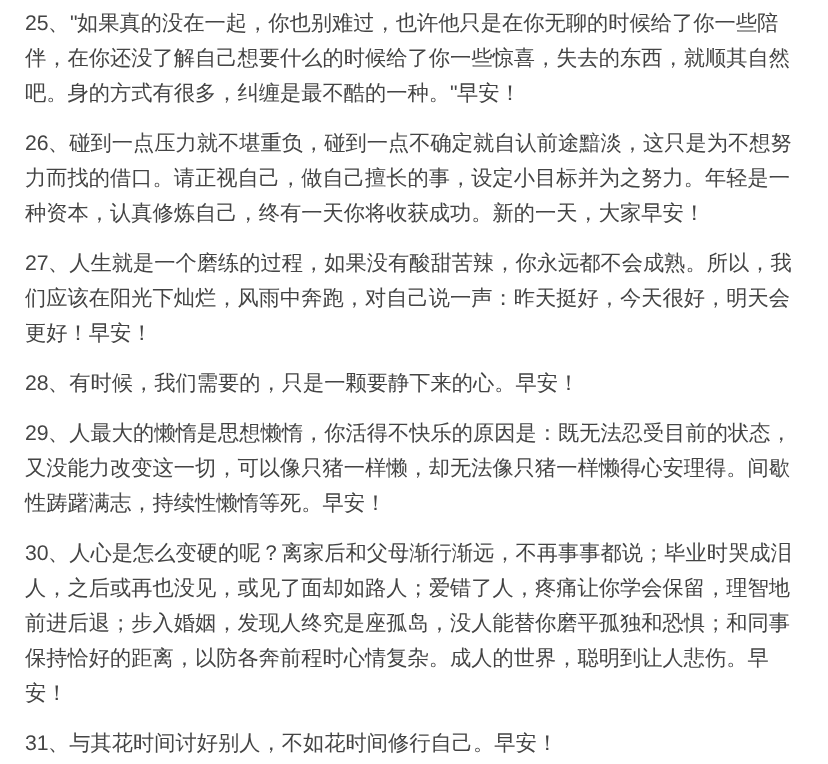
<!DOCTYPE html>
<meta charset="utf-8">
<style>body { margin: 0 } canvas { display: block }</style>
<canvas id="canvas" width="828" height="764"></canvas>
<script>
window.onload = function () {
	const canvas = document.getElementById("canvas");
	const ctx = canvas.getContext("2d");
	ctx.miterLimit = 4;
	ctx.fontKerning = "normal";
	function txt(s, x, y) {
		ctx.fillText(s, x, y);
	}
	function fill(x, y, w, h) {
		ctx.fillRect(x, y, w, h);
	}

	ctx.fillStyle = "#FFFFFF";
	fill(0, 0, 828, 764);
	ctx.font = "21.25px Liberation Sans";
	ctx.fillStyle = "#444444";
	txt("25", 25, 30);
	txt("\"", 70, 30);
	ctx.font = "500 21.25px WenQuanYi Zen Hei";
	txt("如果真的没在一起，你也别难过，也许他只是在你无聊的时候给了你一些陪", 77, 30);
	txt("、", 48, 30);
	txt("伴，在你还没了解自己想要什么的时候给了你一些惊喜，失去的东西，就顺其自然", 25, 65);
	txt("吧。身的方式有很多，纠缠是最不酷的一种。", 25, 100);
	ctx.font = "21.25px Liberation Sans";
	txt("\"", 450, 100);
	ctx.font = "500 21.25px WenQuanYi Zen Hei";
	txt("早安！", 457, 100);
	ctx.font = "21.25px Liberation Sans";
	txt("26", 25, 150);
	ctx.font = "500 21.25px WenQuanYi Zen Hei";
	txt("、碰到一点压力就不堪重负，碰到一点不确定就自认前途黯淡，这只是为不想努", 48, 150);
	txt("力而找的借口。请正视自己，做自己擅长的事，设定小目标并为之努力。年轻是一", 25, 185);
	txt("种资本，认真修炼自己，终有一天你将收获成功。新的一天，大家早安！", 25, 220);
	ctx.font = "21.25px Liberation Sans";
	txt("27", 25, 270);
	ctx.font = "500 21.25px WenQuanYi Zen Hei";
	txt("、人生就是一个磨练的过程，如果没有酸甜苦辣，你永远都不会成熟。所以，我", 48, 270);
	txt("们应该在阳光下灿烂，风雨中奔跑，对自己说一声：昨天挺好，今天很好，明天会", 25, 305);
	txt("更好！早安！", 25, 340);
	ctx.font = "21.25px Liberation Sans";
	txt("28", 25, 390);
	ctx.font = "500 21.25px WenQuanYi Zen Hei";
	txt("、有时候，我们需要的，只是一颗要静下来的心。早安！", 48, 390);
	ctx.font = "21.25px Liberation Sans";
	txt("29", 25, 440);
	ctx.font = "500 21.25px WenQuanYi Zen Hei";
	txt("、人最大的懒惰是思想懒惰，你活得不快乐的原因是：既无法忍受目前的状态，", 48, 440);
	txt("又没能力改变这一切，可以像只猪一样懒，却无法像只猪一样懒得心安理得。间歇", 25, 475);
	txt("性踌躇满志，持续性懒惰等死。早安！", 25, 510);
	ctx.font = "21.25px Liberation Sans";
	txt("30", 25, 560);
	ctx.font = "500 21.25px WenQuanYi Zen Hei";
	txt("、人心是怎么变硬的呢？离家后和父母渐行渐远，不再事事都说；毕业时哭成泪", 48, 560);
	txt("人，之后或再也没见，或见了面却如路人；爱错了人，疼痛让你学会保留，理智地", 25, 595);
	txt("前进后退；步入婚姻，发现人终究是座孤岛，没人能替你磨平孤独和恐惧；和同事", 25, 630);
	txt("保持恰好的距离，以防各奔前程时心情复杂。成人的世界，聪明到让人悲伤。早", 25, 665);
	txt("安！", 25, 700);
	ctx.font = "21.25px Liberation Sans";
	txt("31", 25, 750);
	ctx.font = "500 21.25px WenQuanYi Zen Hei";
	txt("、与其花时间讨好别人，不如花时间修行自己。早安！", 48, 750);
};
</script>
